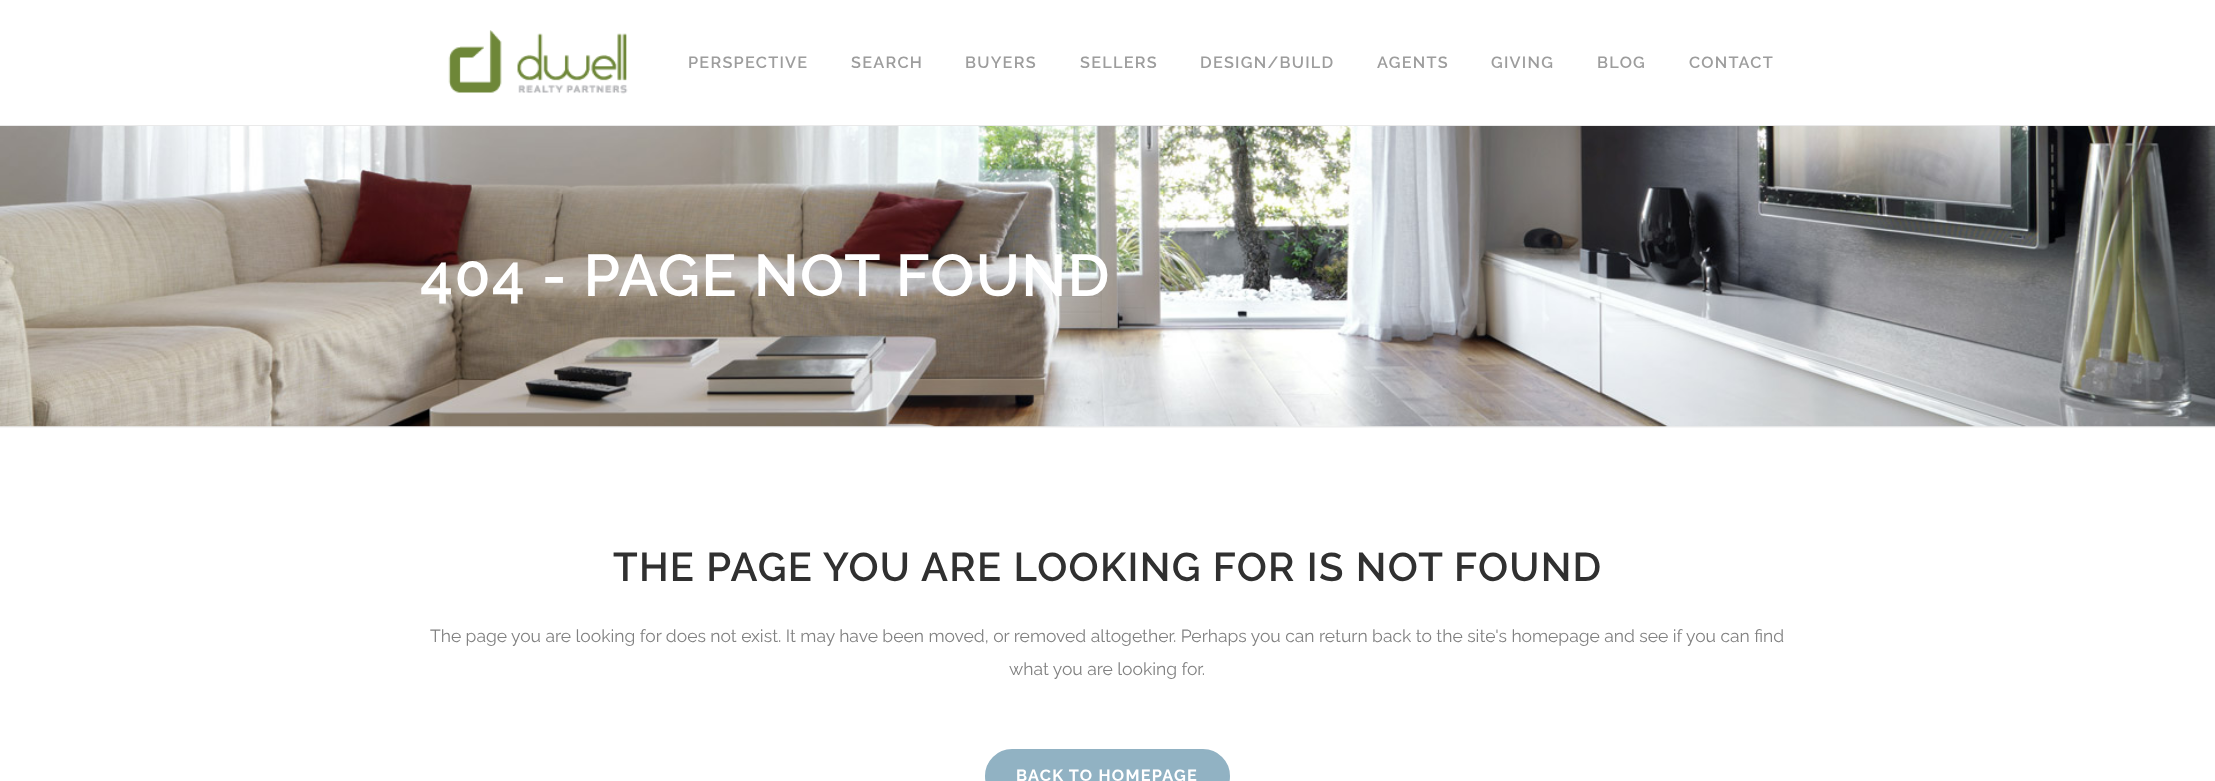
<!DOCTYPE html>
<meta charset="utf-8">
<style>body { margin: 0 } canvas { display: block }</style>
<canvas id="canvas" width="2215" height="781"></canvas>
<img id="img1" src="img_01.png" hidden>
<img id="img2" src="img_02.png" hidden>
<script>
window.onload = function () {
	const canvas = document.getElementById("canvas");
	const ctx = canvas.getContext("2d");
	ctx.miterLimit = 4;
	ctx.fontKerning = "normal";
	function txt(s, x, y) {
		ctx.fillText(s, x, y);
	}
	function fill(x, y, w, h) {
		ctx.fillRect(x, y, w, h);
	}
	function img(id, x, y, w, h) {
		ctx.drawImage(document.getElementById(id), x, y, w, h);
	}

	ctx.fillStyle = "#FFFFFF";
	fill(0, 0, 2215, 781);
	ctx.fillStyle = "#EAEAEA";
	fill(0, 125, 2215, 1);
	img("img1", 448, 30, 180, 64);
	ctx.fillStyle = "#F6F6F6";
	fill(0, 427, 2215, 1);
	ctx.fillStyle = "#EEEEEE";
	fill(0, 426, 2215, 1);
	img("img2", 0, 126, 2215, 301);
	ctx.fillStyle = "#91B2C3";
	ctx.beginPath();
	ctx.roundRect(986.5, 750.5, 242, 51, 25.5);
	ctx.fill();
	ctx.strokeStyle = "#91B2C3";
	ctx.lineWidth = 3;
	ctx.stroke();
	ctx.letterSpacing = "1.25px";
	ctx.font = "600 16.25px Raleway";
	ctx.fillStyle = "#9D9D9D";
	txt("PERSPECTIVE", 688, 68);
	txt("SEARCH", 851, 68);
	txt("BUYERS", 965, 68);
	txt("SELLERS", 1080, 68);
	txt("DESIGN/BUILD", 1200, 68);
	txt("AGENTS", 1377, 68);
	txt("GIVING", 1491, 68);
	txt("BLOG", 1597, 68);
	txt("CONTACT", 1689, 68);
	ctx.font = "600 58.75px Raleway";
	ctx.fillStyle = "#FFFFFF";
	txt("404 - PAGE NOT FOUND", 420, 296);
	ctx.font = "600 40px Raleway";
	ctx.fillStyle = "#303030";
	txt("THE PAGE YOU ARE LOOKING FOR IS NOT FOUND", 613, 581);
	ctx.letterSpacing = "0px";
	ctx.font = "17.5px Raleway";
	ctx.fillStyle = "#818181";
	txt("The page you are looking for does not exist. It may have been moved, or removed altogether. Perhaps you can return back to the site's homepage and see if you can find", 430, 642);
	txt("what you are looking for.", 1009, 675);
	ctx.letterSpacing = "1.25px";
	ctx.font = "bold 16.25px Raleway";
	ctx.fillStyle = "#FFFFFF";
	txt("BACK TO HOMEPAGE", 1016, 781);
};
</script>
